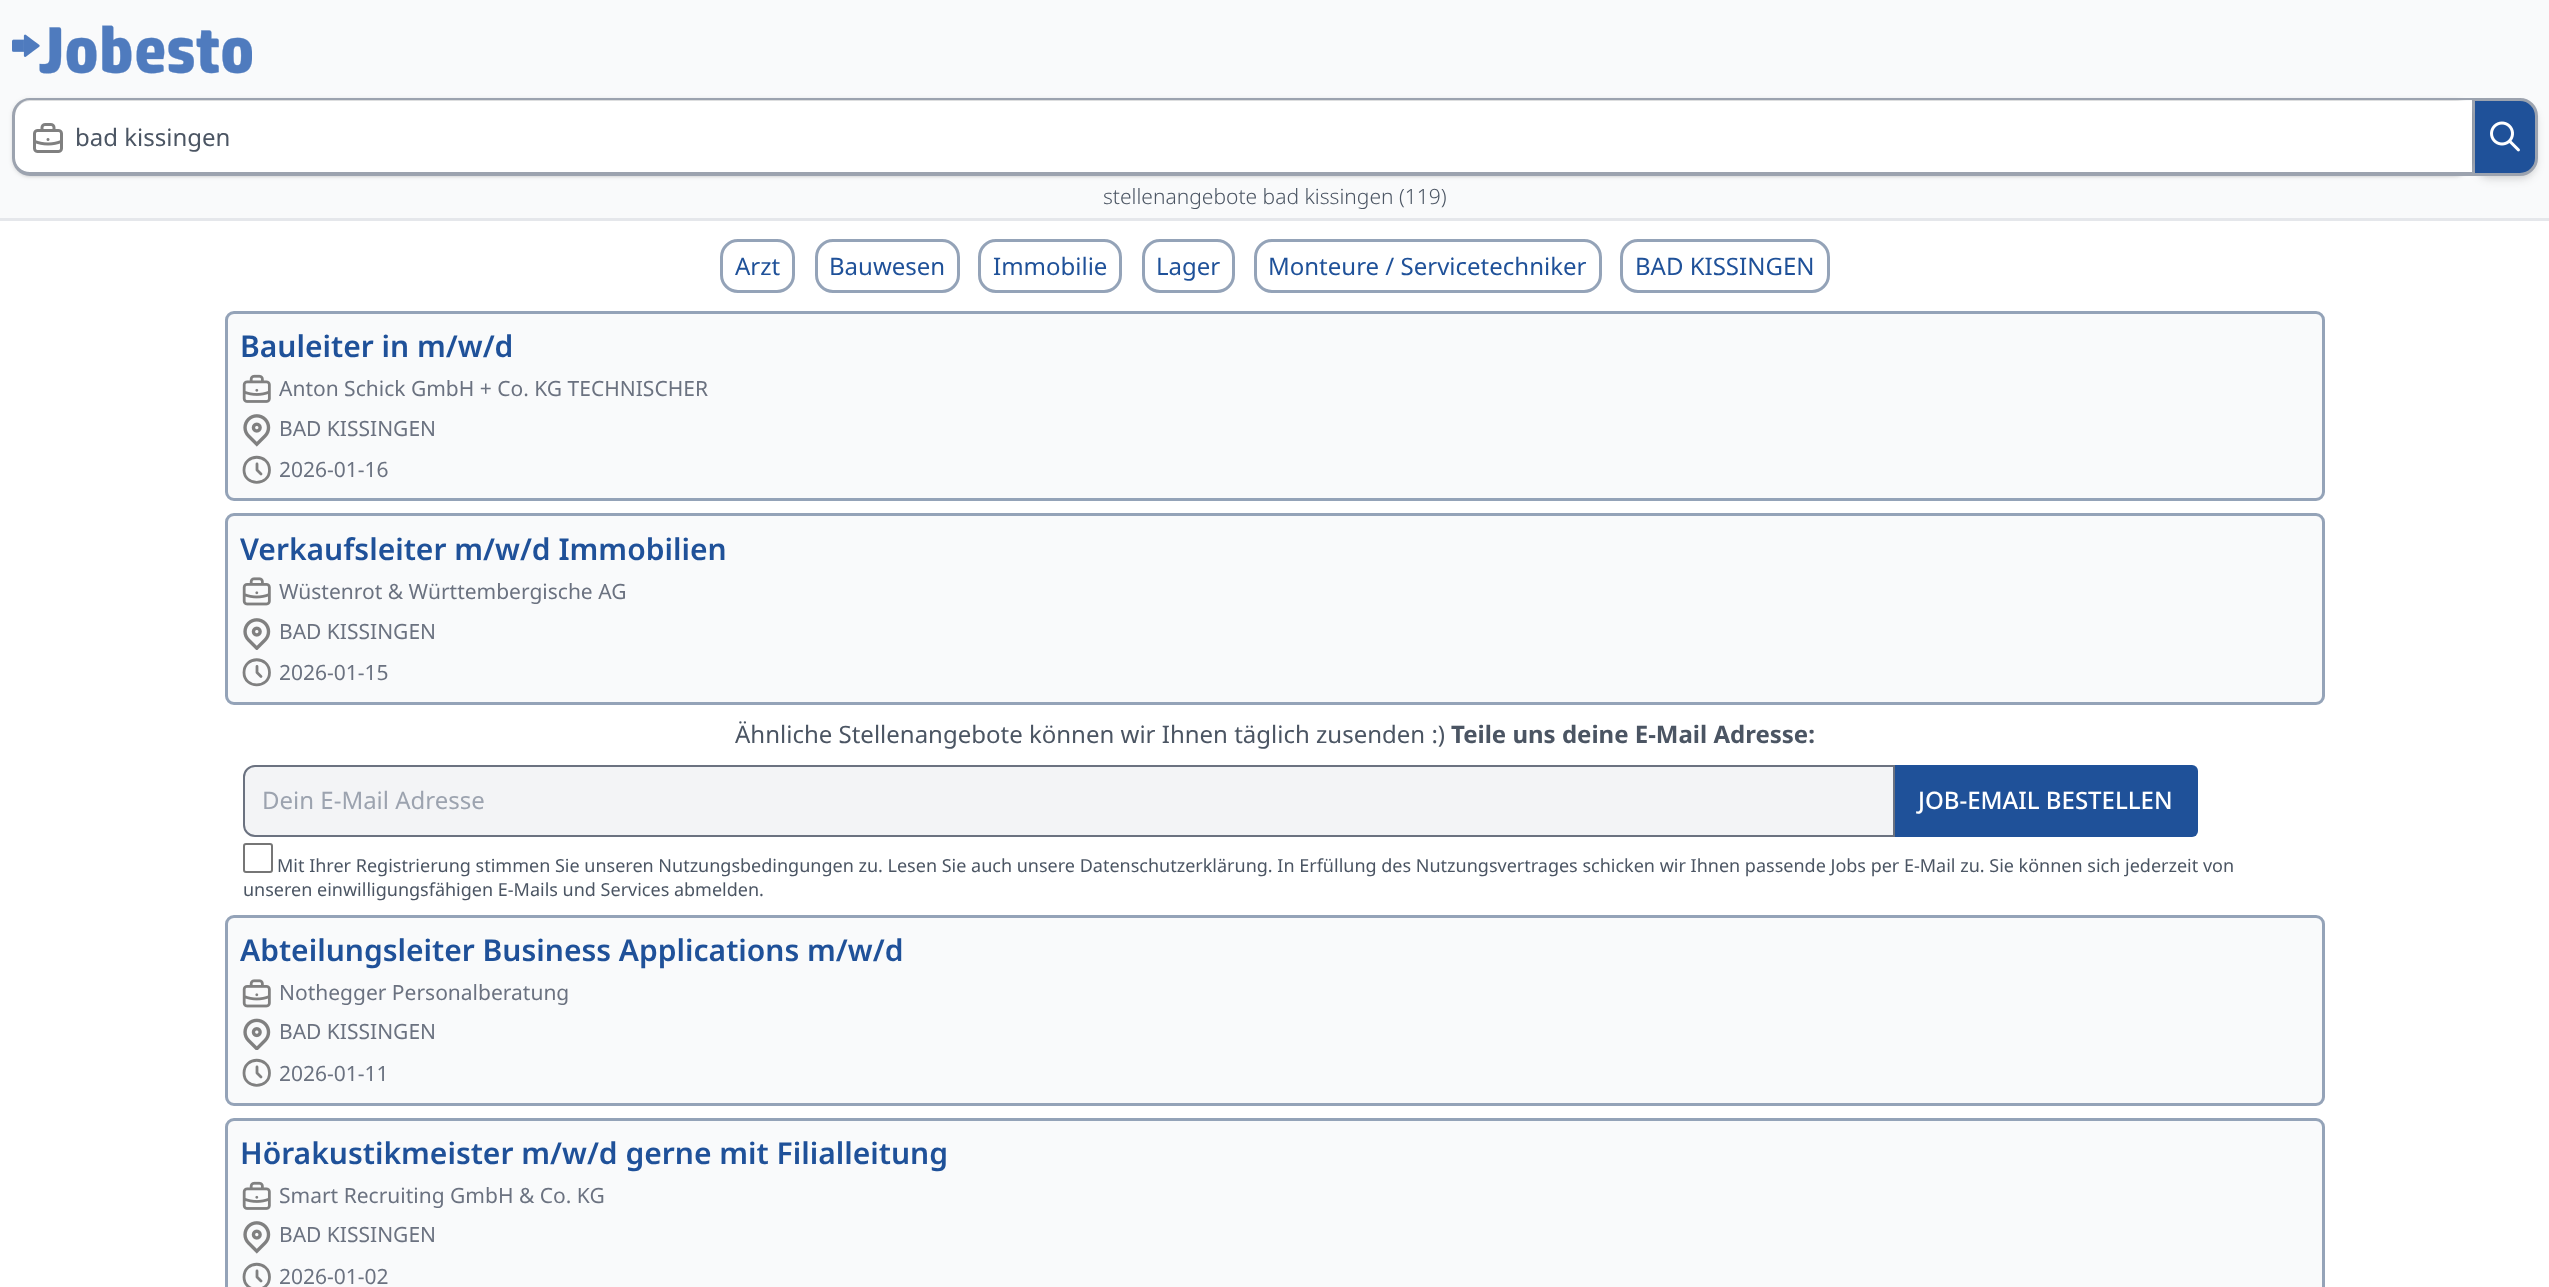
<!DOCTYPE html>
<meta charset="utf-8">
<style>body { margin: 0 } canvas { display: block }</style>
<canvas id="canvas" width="2549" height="1287"></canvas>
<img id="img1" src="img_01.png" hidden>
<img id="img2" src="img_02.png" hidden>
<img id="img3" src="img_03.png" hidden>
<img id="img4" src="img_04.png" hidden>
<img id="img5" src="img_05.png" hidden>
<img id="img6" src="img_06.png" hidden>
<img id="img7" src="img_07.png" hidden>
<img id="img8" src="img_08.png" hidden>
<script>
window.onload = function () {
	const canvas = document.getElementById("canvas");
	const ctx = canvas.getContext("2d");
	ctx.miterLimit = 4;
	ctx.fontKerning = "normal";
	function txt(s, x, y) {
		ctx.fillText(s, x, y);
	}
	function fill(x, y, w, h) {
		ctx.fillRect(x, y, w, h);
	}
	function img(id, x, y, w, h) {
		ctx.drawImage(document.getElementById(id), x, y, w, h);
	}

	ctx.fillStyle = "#FFFFFF";
	fill(0, 0, 2549, 1287);
	ctx.fillStyle = "#F9FAFB";
	fill(0, 0, 2549, 218);
	img("img1", 12, 25, 240, 49);
	ctx.fillStyle = "#E5E7EB";
	fill(0, 218, 2549, 3);
	ctx.fillStyle = "rgba(0, 0, 0, 0.1)";
	ctx.filter = "blur(3px)";
	ctx.beginPath();
	ctx.roundRect(2475, 104, 60, 72, 15);
	ctx.fill();
	ctx.filter = "none";
	ctx.filter = "blur(4.5px)";
	ctx.beginPath();
	ctx.roundRect(2474, 105, 63, 75, 17);
	ctx.fill();
	ctx.filter = "none";
	ctx.fillStyle = "#1F5199";
	ctx.beginPath();
	ctx.roundRect(2473.5, 99.5, 63, 75, [0, 16.5, 16.5, 0]);
	ctx.fill();
	ctx.strokeStyle = "#9CA3AF";
	ctx.lineWidth = 3;
	ctx.stroke();
	ctx.fillStyle = "rgba(0, 0, 0, 0.1)";
	ctx.filter = "blur(1.5px)";
	ctx.beginPath();
	ctx.roundRect(14, 101, 2457, 75, 17);
	ctx.fill();
	ctx.filter = "none";
	ctx.filter = "blur(2px)";
	ctx.beginPath();
	ctx.roundRect(12, 99, 2460, 78, 18);
	ctx.fill();
	ctx.filter = "none";
	ctx.fillStyle = "#FFFFFF";
	ctx.beginPath();
	ctx.roundRect(15, 101, 2457, 72, [15, 0, 0, 15]);
	ctx.fill();
	ctx.fillStyle = "#9CA3AF";
	ctx.beginPath();
	ctx.moveTo(30, 98);
	ctx.lineTo(2472, 98);
	ctx.lineTo(2472, 176);
	ctx.lineTo(30, 176);
	ctx.bezierCurveTo(20, 176, 12, 167, 12, 158);
	ctx.lineTo(12, 116);
	ctx.bezierCurveTo(12, 106, 20, 98, 30, 98);
	ctx.closePath();
	ctx.moveTo(30, 100);
	ctx.lineTo(2472, 100);
	ctx.lineTo(2472, 172);
	ctx.lineTo(30, 172);
	ctx.bezierCurveTo(22, 172, 15, 166, 15, 158);
	ctx.lineTo(15, 116);
	ctx.bezierCurveTo(15, 107, 22, 100, 30, 100);
	ctx.closePath();
	ctx.fill("evenodd");
	img("img2", 33, 123, 30, 30);
	img("img3", 2490, 121, 30, 31);
	ctx.beginPath();
	ctx.roundRect(721.5, 240.5, 72, 51, 16.5);
	ctx.strokeStyle = "#94A3B8";
	ctx.stroke();
	ctx.beginPath();
	ctx.roundRect(816.5, 240.5, 142, 51, 16.5);
	ctx.stroke();
	ctx.beginPath();
	ctx.roundRect(979.5, 240.5, 141, 51, 16.5);
	ctx.stroke();
	ctx.beginPath();
	ctx.roundRect(1143.5, 240.5, 90, 51, 16.5);
	ctx.stroke();
	ctx.beginPath();
	ctx.roundRect(1255.5, 240.5, 345, 51, 16.5);
	ctx.stroke();
	ctx.beginPath();
	ctx.roundRect(1621.5, 240.5, 207, 51, 16.5);
	ctx.stroke();
	ctx.fillStyle = "#F9FAFB";
	ctx.beginPath();
	ctx.roundRect(226.5, 312.5, 2097, 187, 7.5);
	ctx.fill();
	ctx.stroke();
	img("img4", 242, 374, 29, 29);
	img("img5", 243, 414, 28, 33);
	ctx.beginPath();
	ctx.moveTo(257, 464);
	ctx.lineTo(257, 470);
	ctx.lineTo(261, 474);
	ctx.moveTo(269.5, 470);
	ctx.bezierCurveTo(269.5, 486.5, 244, 486.5, 244, 470);
	ctx.bezierCurveTo(244, 453, 269.5, 453, 269.5, 470);
	ctx.strokeStyle = "#808080";
	ctx.lineWidth = 2.8;
	ctx.lineCap = "round";
	ctx.lineJoin = "round";
	ctx.stroke();
	ctx.beginPath();
	ctx.roundRect(226.5, 514.5, 2097, 189, 7.5);
	ctx.fill();
	ctx.strokeStyle = "#94A3B8";
	ctx.lineWidth = 3;
	ctx.lineJoin = "miter";
	ctx.stroke();
	img("img6", 242, 577, 29, 29);
	img("img7", 243, 618, 28, 32);
	ctx.beginPath();
	ctx.moveTo(257, 666.5);
	ctx.lineTo(257, 672.5);
	ctx.lineTo(261, 676.5);
	ctx.moveTo(269.5, 672.5);
	ctx.bezierCurveTo(269.5, 689, 244, 689, 244, 672.5);
	ctx.bezierCurveTo(244, 655.5, 269.5, 655.5, 269.5, 672.5);
	ctx.strokeStyle = "#808080";
	ctx.lineWidth = 2.8;
	ctx.lineJoin = "round";
	ctx.stroke();
	ctx.fillStyle = "#F3F4F6";
	ctx.beginPath();
	ctx.roundRect(244, 766, 1650, 70, [11, 0, 0, 11]);
	ctx.fill();
	ctx.strokeStyle = "#6B7280";
	ctx.lineWidth = 2;
	ctx.lineJoin = "miter";
	ctx.stroke();
	ctx.fillStyle = "#1F5199";
	ctx.beginPath();
	ctx.roundRect(1895, 765, 303, 72, [0, 6, 6, 0]);
	ctx.fill();
	ctx.beginPath();
	ctx.roundRect(244, 844, 28, 28, 2);
	ctx.strokeStyle = "#767676";
	ctx.stroke();
	ctx.fillStyle = "#F9FAFB";
	ctx.beginPath();
	ctx.roundRect(226.5, 916.5, 2097, 188, 7.5);
	ctx.fill();
	ctx.strokeStyle = "#94A3B8";
	ctx.lineWidth = 3;
	ctx.stroke();
	img("img6", 242, 979, 29, 29);
	img("img8", 243, 1018, 28, 32);
	ctx.beginPath();
	ctx.moveTo(257, 1067);
	ctx.lineTo(257, 1073);
	ctx.lineTo(261, 1077);
	ctx.moveTo(269.5, 1073);
	ctx.bezierCurveTo(269.5, 1089.5, 244, 1089.5, 244, 1073);
	ctx.bezierCurveTo(244, 1056, 269.5, 1056, 269.5, 1073);
	ctx.strokeStyle = "#808080";
	ctx.lineWidth = 2.8;
	ctx.lineJoin = "round";
	ctx.stroke();
	ctx.beginPath();
	ctx.roundRect(226.5, 1119.5, 2097, 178, 7.5);
	ctx.fill();
	ctx.strokeStyle = "#94A3B8";
	ctx.lineWidth = 3;
	ctx.lineJoin = "miter";
	ctx.stroke();
	img("img4", 242, 1181, 29, 29);
	img("img5", 243, 1221, 28, 33);
	ctx.beginPath();
	ctx.moveTo(257, 1271);
	ctx.lineTo(257, 1277);
	ctx.lineTo(261, 1281);
	ctx.moveTo(269.5, 1277);
	ctx.bezierCurveTo(269.5, 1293.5, 244, 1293.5, 244, 1277);
	ctx.bezierCurveTo(244, 1260, 269.5, 1260, 269.5, 1277);
	ctx.strokeStyle = "#808080";
	ctx.lineWidth = 2.8;
	ctx.lineJoin = "round";
	ctx.stroke();
	ctx.font = "24px Noto Sans";
	ctx.fillStyle = "#4B5563";
	txt("bad kissingen", 75, 146);
	ctx.font = "300 21px Noto Sans";
	txt("stellenangebote bad kissingen (119)", 1103, 204);
	ctx.font = "24px Noto Sans";
	ctx.fillStyle = "#1F5199";
	txt("Arzt", 735, 275);
	txt("Bauwesen", 829, 275);
	txt("Immobilie", 993, 275);
	txt("Lager", 1156, 275);
	txt("Monteure / Servicetechniker", 1268, 275);
	txt("BAD KISSINGEN", 1635, 275);
	ctx.font = "600 30px Noto Sans";
	txt("Bauleiter in m/w/d", 240, 357);
	ctx.font = "21px Noto Sans";
	ctx.fillStyle = "#6B7280";
	txt("Anton Schick GmbH + Co. KG TECHNISCHER", 279, 396);
	txt("BAD KISSINGEN", 279, 436);
	txt("2026-01-16", 279, 477);
	ctx.font = "600 30px Noto Sans";
	ctx.fillStyle = "#1F5199";
	txt("Verkaufsleiter m/w/d Immobilien", 240, 560);
	ctx.font = "21px Noto Sans";
	ctx.fillStyle = "#6B7280";
	txt("Wüstenrot & Württembergische AG", 279, 599);
	txt("BAD KISSINGEN", 279, 639);
	txt("2026-01-15", 279, 680);
	ctx.font = "24px Noto Sans";
	ctx.fillStyle = "#4B5563";
	txt("Ähnliche Stellenangebote können wir Ihnen täglich zusenden :)", 735, 743);
	ctx.font = "bold 24px Noto Sans";
	txt("Teile uns deine E-Mail Adresse:", 1451, 743);
	ctx.font = "24px Noto Sans";
	ctx.fillStyle = "#9CA3AF";
	txt("Dein E-Mail Adresse", 262, 809);
	ctx.font = "500 24px Noto Sans";
	ctx.fillStyle = "#FFFFFF";
	txt("JOB-EMAIL BESTELLEN", 1918, 809);
	ctx.font = "18px Noto Sans";
	ctx.fillStyle = "#4B5563";
	txt("Mit Ihrer Registrierung stimmen Sie unseren Nutzungsbedingungen zu. Lesen Sie auch unsere Datenschutzerklärung. In Erfüllung des Nutzungsvertrages schicken wir Ihnen passende Jobs per E-Mail zu. Sie können sich jederzeit von", 277, 872);
	txt("unseren einwilligungsfähigen E-Mails und Services abmelden.", 243, 896);
	ctx.font = "600 30px Noto Sans";
	ctx.fillStyle = "#1F5199";
	txt("Abteilungsleiter Business Applications m/w/d", 240, 961);
	ctx.font = "21px Noto Sans";
	ctx.fillStyle = "#6B7280";
	txt("Nothegger Personalberatung", 279, 1000);
	txt("BAD KISSINGEN", 279, 1039);
	txt("2026-01-11", 279, 1081);
	ctx.font = "600 30px Noto Sans";
	ctx.fillStyle = "#1F5199";
	txt("Hörakustikmeister m/w/d gerne mit Filialleitung", 240, 1164);
	ctx.font = "21px Noto Sans";
	ctx.fillStyle = "#6B7280";
	txt("Smart Recruiting GmbH & Co. KG", 279, 1203);
	txt("BAD KISSINGEN", 279, 1242);
	txt("2026-01-02", 279, 1284);
};
</script>
